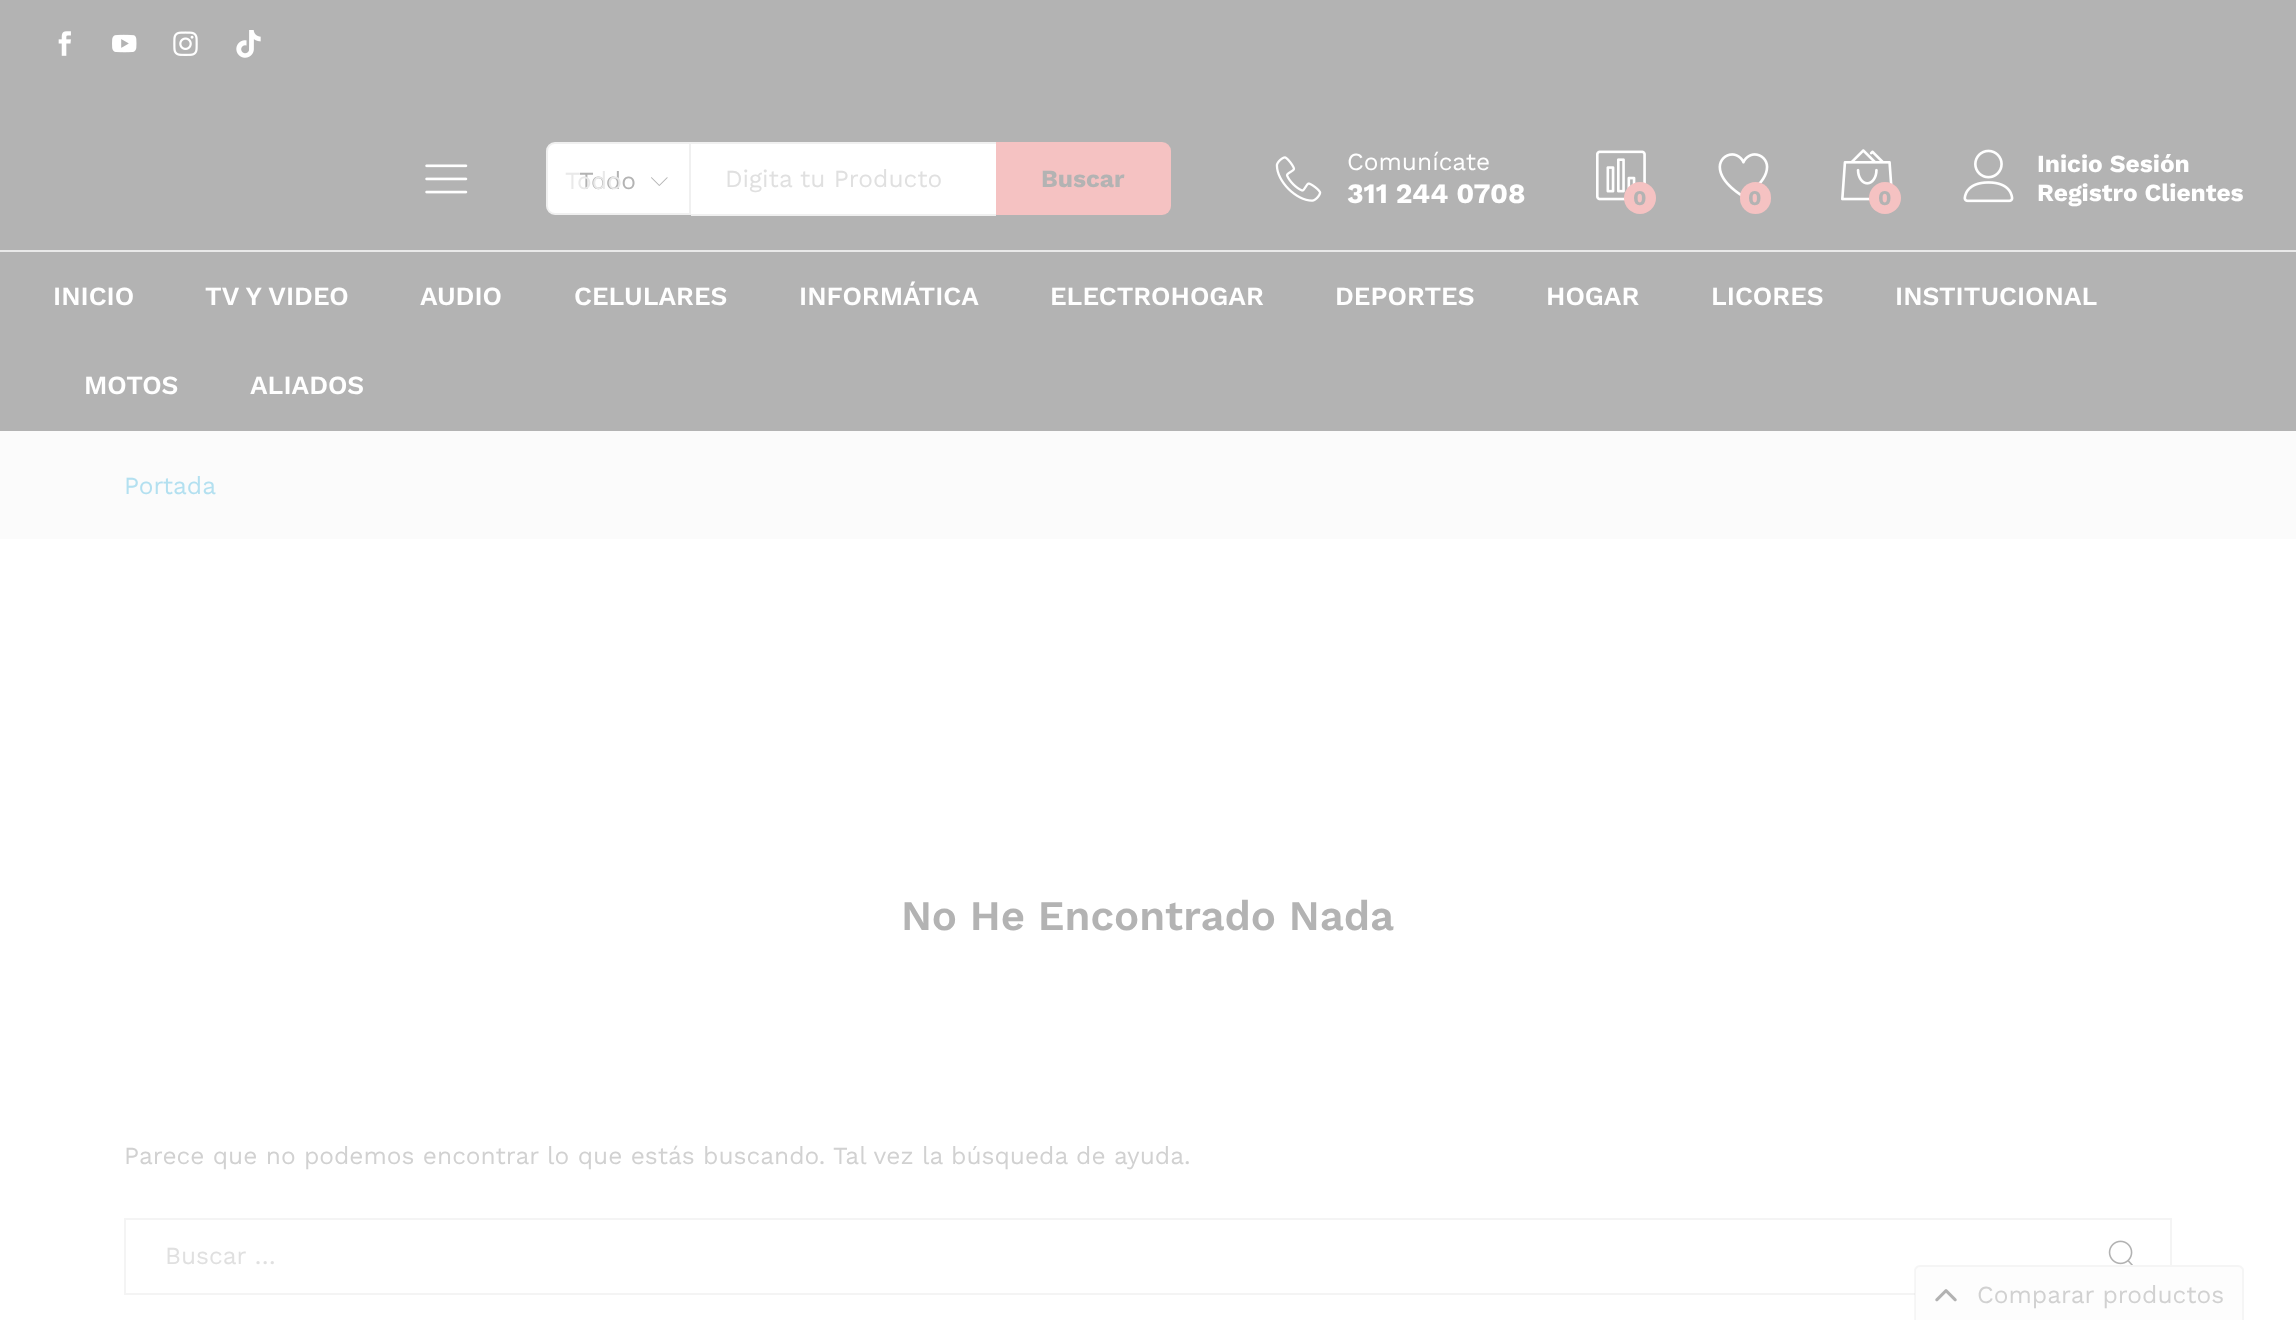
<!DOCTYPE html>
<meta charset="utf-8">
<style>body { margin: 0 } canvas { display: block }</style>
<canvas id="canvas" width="2296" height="1320"></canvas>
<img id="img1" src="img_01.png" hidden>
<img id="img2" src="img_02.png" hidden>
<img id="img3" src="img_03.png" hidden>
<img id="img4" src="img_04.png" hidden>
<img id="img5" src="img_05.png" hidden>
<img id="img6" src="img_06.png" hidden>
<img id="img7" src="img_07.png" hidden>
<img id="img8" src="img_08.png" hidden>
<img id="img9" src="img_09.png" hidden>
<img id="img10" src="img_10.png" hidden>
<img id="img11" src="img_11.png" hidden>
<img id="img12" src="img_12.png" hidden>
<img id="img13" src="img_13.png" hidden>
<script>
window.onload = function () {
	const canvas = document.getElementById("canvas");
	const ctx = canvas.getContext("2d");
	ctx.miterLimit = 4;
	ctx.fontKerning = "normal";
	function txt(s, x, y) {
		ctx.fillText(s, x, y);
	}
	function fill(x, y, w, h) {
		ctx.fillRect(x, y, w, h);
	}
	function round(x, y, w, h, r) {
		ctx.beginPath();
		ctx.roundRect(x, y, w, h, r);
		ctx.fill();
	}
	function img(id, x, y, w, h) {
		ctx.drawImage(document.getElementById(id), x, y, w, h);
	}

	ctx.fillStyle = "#FFFFFF";
	fill(0, 0, 2296, 1320);
	ctx.fillStyle = "#B3B3B3";
	fill(0, 0, 2296, 431);
	img("img1", 58, 31, 13, 25);
	img("img2", 112, 34, 25, 19);
	img("img3", 173, 31, 25, 25);
	img("img4", 236, 30, 25, 28);
	img("img5", 425, 164, 43, 30);
	ctx.fillStyle = "#FFFFFF";
	ctx.beginPath();
	ctx.roundRect(547, 143, 143, 71, [8, 0, 0, 8]);
	ctx.fill();
	ctx.strokeStyle = "#F0F0F0";
	ctx.lineWidth = 2;
	ctx.stroke();
	img("img6", 651, 177, 17, 9);
	fill(691, 144, 305, 70);
	ctx.fillStyle = "#F0F0F0";
	fill(691, 142, 305, 2);
	fill(691, 214, 305, 2);
	ctx.fillStyle = "#F5C2C2";
	ctx.beginPath();
	ctx.roundRect(996, 142, 175, 73, [0, 9, 9, 0]);
	ctx.fill();
	img("img7", 1275, 156, 47, 46);
	img("img8", 1596, 150, 50, 51);
	ctx.beginPath();
	ctx.arc(1640, 198, 16, 0, Math.PI * 2);
	ctx.fill();
	img("img9", 1718, 153, 51, 44);
	round(1740, 182, 31, 32, 15.5);
	img("img10", 1841, 149, 52, 52);
	ctx.beginPath();
	ctx.arc(1885, 198, 16, 0, Math.PI * 2);
	ctx.fill();
	img("img11", 1963, 149, 51, 54);
	ctx.fillStyle = "#E9E9E9";
	fill(0, 250, 2296, 2);
	ctx.fillStyle = "#FBFBFB";
	fill(0, 431, 2296, 108);
	ctx.strokeStyle = "#F4F4F4";
	ctx.strokeRect(125, 1219, 2046, 75);
	img("img12", 2108, 1240, 25, 25);
	ctx.fillStyle = "#FDFDFD";
	ctx.beginPath();
	ctx.moveTo(1920, 1265);
	ctx.lineTo(2239, 1265);
	ctx.bezierCurveTo(2242, 1265, 2244, 1267, 2244, 1270);
	ctx.lineTo(2244, 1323);
	ctx.lineTo(1915, 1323);
	ctx.lineTo(1915, 1270);
	ctx.bezierCurveTo(1915, 1267, 1917, 1265, 1920, 1265);
	ctx.closePath();
	ctx.fill();
	ctx.fillStyle = "rgba(179, 179, 179, 0.1)";
	ctx.beginPath();
	ctx.moveTo(1920, 1265);
	ctx.lineTo(2238, 1265);
	ctx.bezierCurveTo(2241, 1265, 2244, 1268, 2244, 1270);
	ctx.lineTo(2244, 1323);
	ctx.lineTo(1914, 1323);
	ctx.lineTo(1914, 1270);
	ctx.bezierCurveTo(1914, 1268, 1917, 1265, 1920, 1265);
	ctx.closePath();
	ctx.moveTo(1920, 1267);
	ctx.lineTo(2238, 1267);
	ctx.bezierCurveTo(2240, 1267, 2242, 1269, 2242, 1270);
	ctx.lineTo(2242, 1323);
	ctx.lineTo(1916, 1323);
	ctx.lineTo(1916, 1270);
	ctx.bezierCurveTo(1916, 1269, 1918, 1267, 1920, 1267);
	ctx.closePath();
	ctx.fill("evenodd");
	img("img13", 1935, 1289, 22, 13);
	ctx.font = "24.5px Work Sans";
	ctx.fillStyle = "#B3B3B3";
	txt("Todo", 579, 189);
	ctx.fillStyle = "#E9E9E9";
	txt("Todo", 565, 189);
	ctx.fillStyle = "#E0E0E0";
	txt("Digita tu Producto", 725, 187);
	ctx.font = "bold 24.5px Work Sans";
	ctx.fillStyle = "#B3B3B3";
	txt("Buscar", 1041, 187);
	ctx.font = "24.5px Work Sans";
	ctx.fillStyle = "#FFFFFF";
	txt("Comunícate", 1347, 170);
	ctx.font = "bold 28px Work Sans";
	txt("311 244 0708", 1347, 203);
	ctx.font = "bold 21px Work Sans";
	ctx.fillStyle = "#B3B3B3";
	txt("0", 1633, 205);
	txt("0", 1748, 205);
	txt("0", 1878, 205);
	ctx.font = "bold 24.5px Work Sans";
	ctx.fillStyle = "#FFFFFF";
	txt("Inicio Sesión", 2037, 172);
	txt("Registro Clientes", 2037, 201);
	ctx.font = "600 26.25px Work Sans";
	txt("INICIO", 53, 305);
	txt("TV Y VIDEO", 205, 305);
	txt("AUDIO", 420, 305);
	txt("CELULARES", 574, 305);
	txt("INFORMÁTICA", 799, 305);
	txt("ELECTROHOGAR", 1050, 305);
	txt("DEPORTES", 1335, 305);
	txt("HOGAR", 1546, 305);
	txt("LICORES", 1711, 305);
	txt("INSTITUCIONAL", 1895, 305);
	txt("MOTOS", 84, 394);
	txt("ALIADOS", 250, 394);
	ctx.font = "24.5px Work Sans";
	ctx.fillStyle = "#B3E0F0";
	txt("Portada", 124, 494);
	ctx.font = "600 42px Work Sans";
	ctx.fillStyle = "#B3B3B3";
	txt("No He Encontrado Nada", 901, 930);
	ctx.font = "24.5px Work Sans";
	ctx.fillStyle = "#D1D1D1";
	txt("Parece que no podemos encontrar lo que estás buscando. Tal vez la búsqueda de ayuda.", 124, 1164);
	ctx.fillStyle = "#E0E0E0";
	txt("Buscar …", 165, 1264);
	ctx.fillStyle = "#D1D1D1";
	txt("Comparar productos", 1977, 1303);
};
</script>
